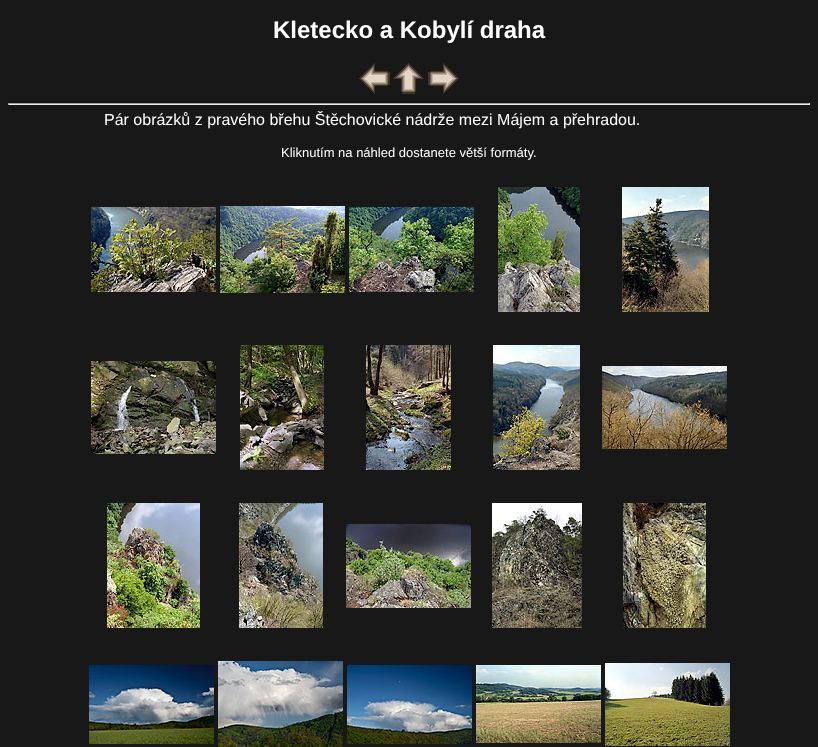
<!DOCTYPE html>
<meta charset="utf-8">
<style>body { margin: 0 } canvas { display: block }</style>
<canvas id="canvas" width="818" height="747"></canvas>
<img id="img1" src="img_01.png" hidden>
<img id="img2" src="img_02.png" hidden>
<img id="img3" src="img_03.png" hidden>
<img id="img4" src="img_04.png" hidden>
<img id="img5" src="img_05.png" hidden>
<img id="img6" src="img_06.png" hidden>
<img id="img7" src="img_07.png" hidden>
<img id="img8" src="img_08.png" hidden>
<img id="img9" src="img_09.png" hidden>
<img id="img10" src="img_10.png" hidden>
<img id="img11" src="img_11.png" hidden>
<img id="img12" src="img_12.png" hidden>
<img id="img13" src="img_13.png" hidden>
<img id="img14" src="img_14.png" hidden>
<img id="img15" src="img_15.png" hidden>
<img id="img16" src="img_16.png" hidden>
<img id="img17" src="img_17.png" hidden>
<img id="img18" src="img_18.png" hidden>
<img id="img19" src="img_19.png" hidden>
<img id="img20" src="img_20.png" hidden>
<img id="img21" src="img_21.png" hidden>
<img id="img22" src="img_22.png" hidden>
<img id="img23" src="img_23.png" hidden>
<script>
window.onload = function () {
	const canvas = document.getElementById("canvas");
	const ctx = canvas.getContext("2d");
	ctx.miterLimit = 4;
	ctx.fontKerning = "normal";
	function txt(s, x, y) {
		ctx.fillText(s, x, y);
	}
	function fill(x, y, w, h) {
		ctx.fillRect(x, y, w, h);
	}
	function img(id, x, y, w, h) {
		ctx.drawImage(document.getElementById(id), x, y, w, h);
	}

	ctx.fillStyle = "#181818";
	fill(0, 0, 818, 747);
	img("img1", 359, 63, 31, 31);
	img("img2", 393, 63, 31, 31);
	img("img3", 428, 63, 31, 31);
	ctx.fillStyle = "#9F9F9F";
	fill(8, 103, 802, 1);
	ctx.fillStyle = "#EEEEEE";
	fill(809, 103, 1, 2);
	fill(8, 104, 802, 1);
	ctx.fillStyle = "#9F9F9F";
	fill(8, 103, 1, 2);
	img("img4", 91, 207, 125, 85);
	img("img5", 220, 206, 125, 87);
	img("img6", 349, 207, 125, 85);
	img("img7", 498, 187, 82, 125);
	img("img8", 622, 187, 87, 125);
	img("img9", 91, 361, 125, 93);
	img("img10", 240, 345, 84, 125);
	img("img11", 366, 345, 85, 125);
	img("img12", 493, 345, 87, 125);
	img("img13", 602, 366, 125, 83);
	img("img14", 107, 503, 93, 125);
	img("img15", 239, 503, 84, 125);
	img("img16", 346, 524, 125, 84);
	img("img17", 492, 503, 90, 125);
	img("img18", 623, 503, 83, 125);
	img("img19", 89, 665, 125, 79);
	img("img20", 218, 661, 125, 86);
	img("img21", 347, 665, 125, 79);
	img("img22", 476, 665, 125, 78);
	img("img23", 605, 663, 125, 83);
	ctx.font = "bold 24px Liberation Sans";
	ctx.fillStyle = "#FFFFFF";
	txt("Kletecko a Kobylí draha", 273, 38);
	ctx.font = "16px Liberation Sans";
	txt("Pár obrázků z pravého břehu Štěchovické nádrže mezi Májem a přehradou.", 104, 125);
	ctx.font = "13px Liberation Sans";
	txt("Kliknutím na náhled dostanete větší formáty.", 281, 157);
};
</script>
